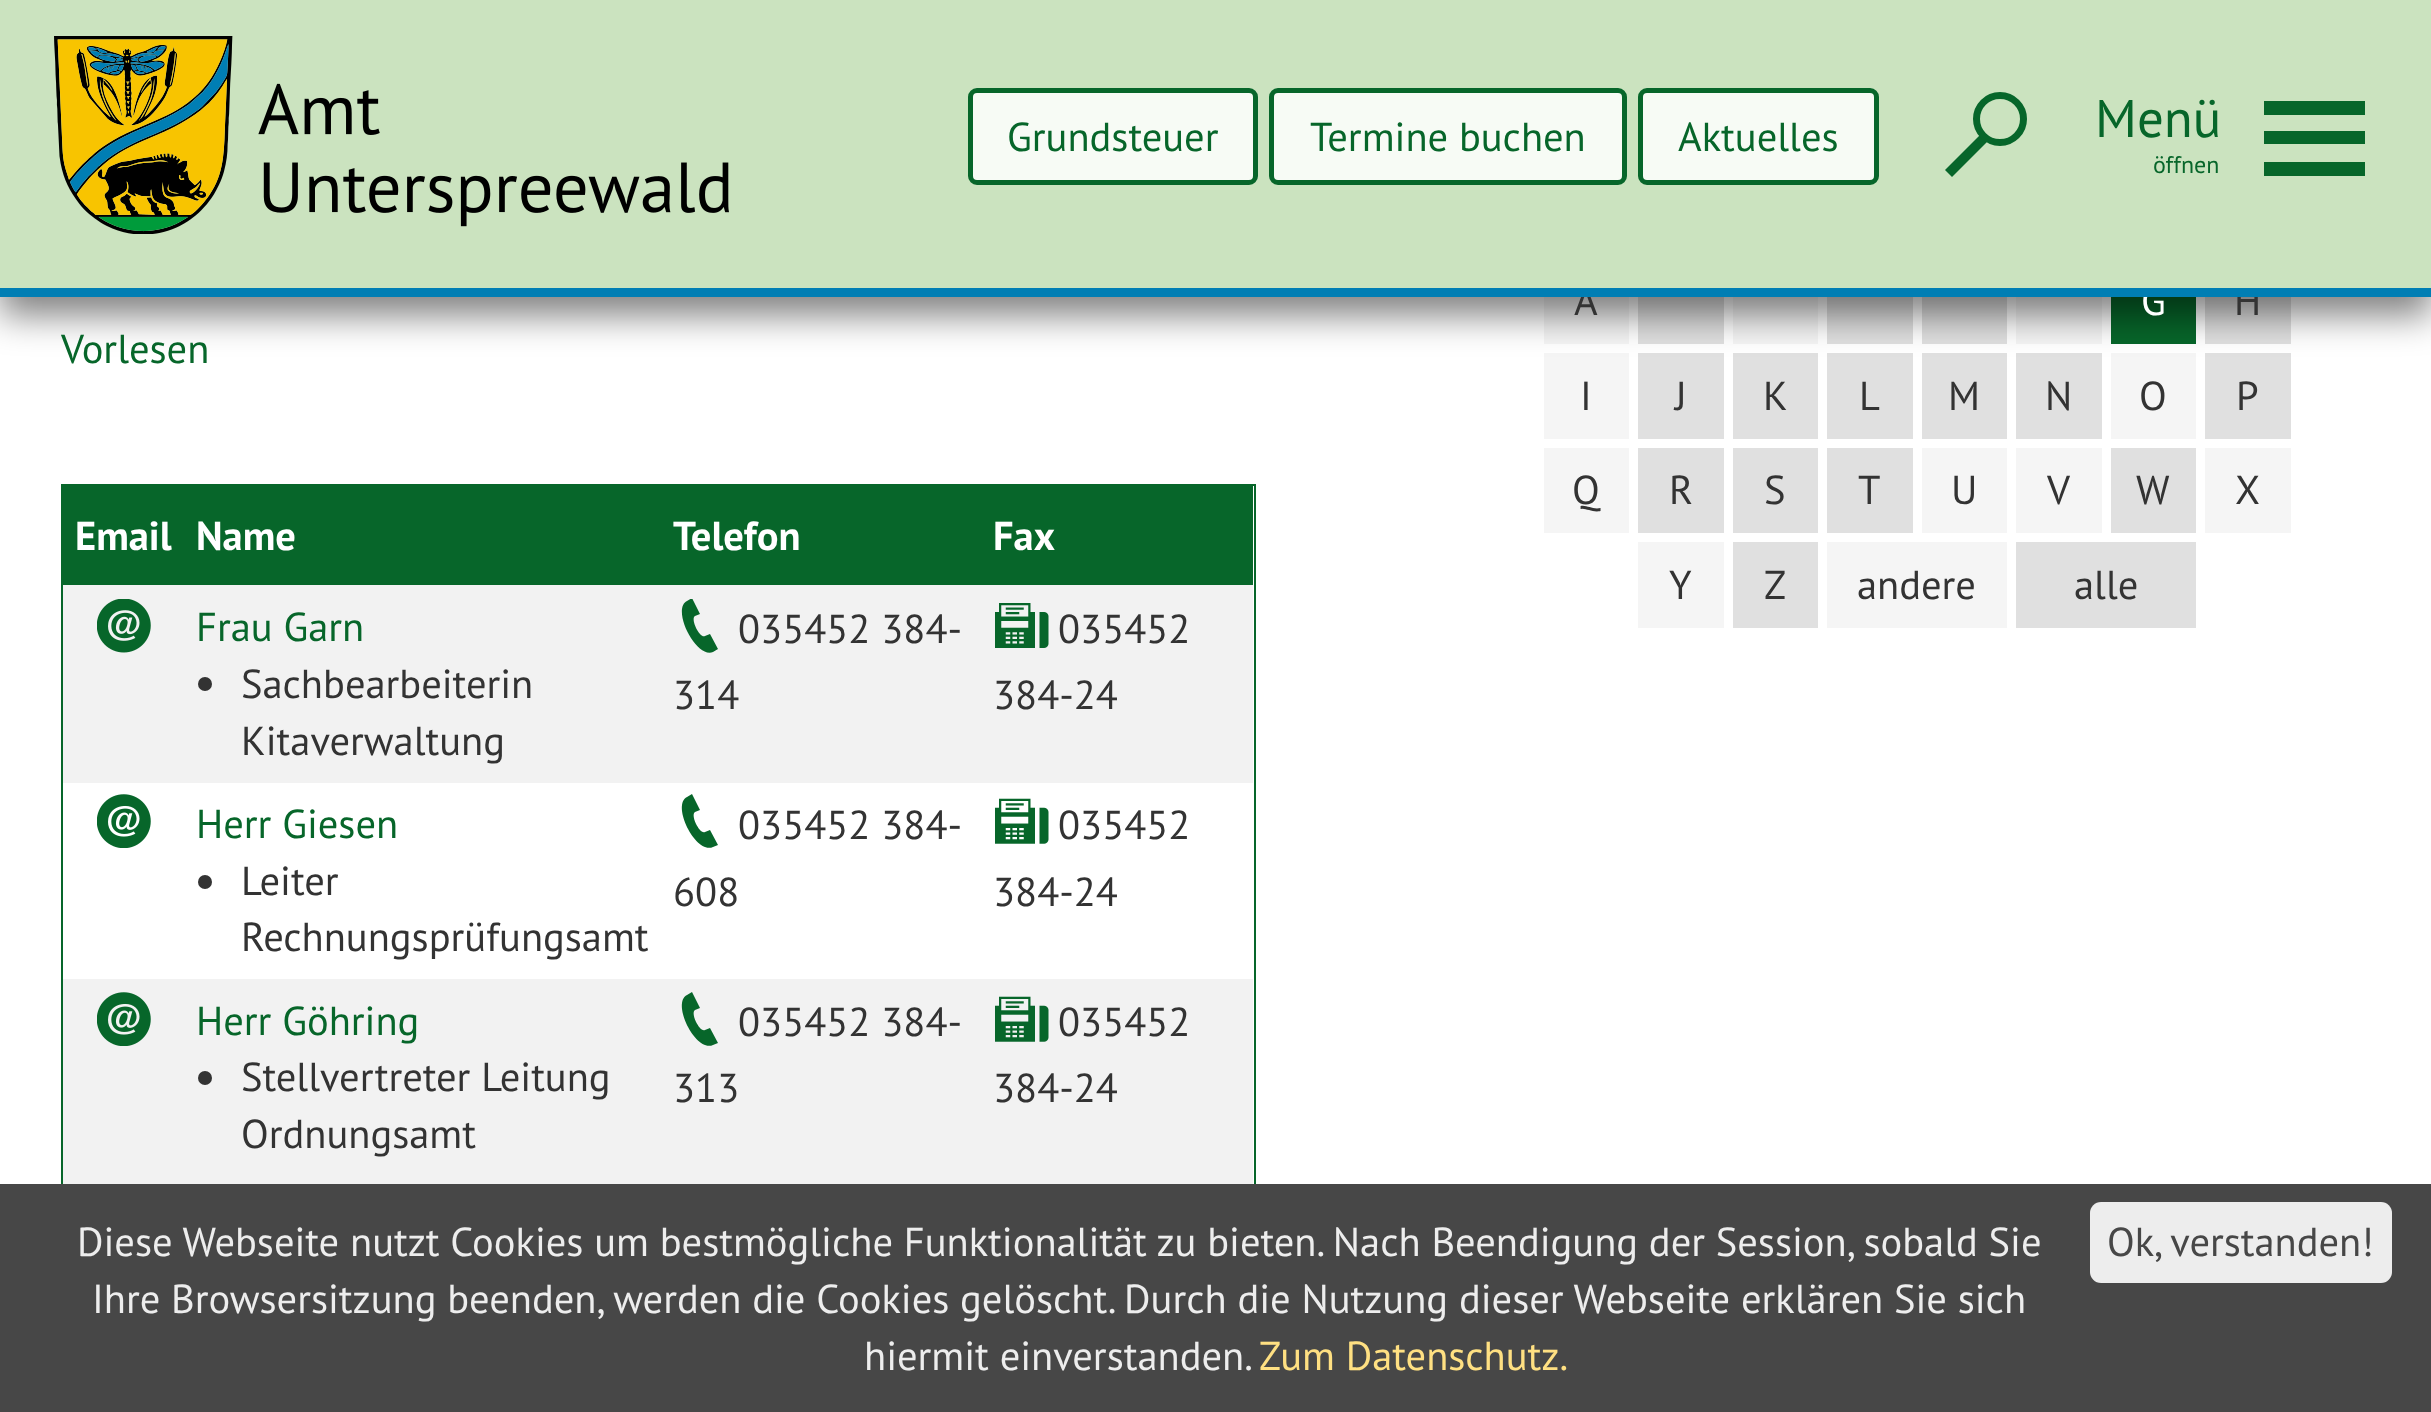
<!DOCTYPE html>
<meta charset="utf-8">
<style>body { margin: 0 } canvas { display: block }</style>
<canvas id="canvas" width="2431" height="1412"></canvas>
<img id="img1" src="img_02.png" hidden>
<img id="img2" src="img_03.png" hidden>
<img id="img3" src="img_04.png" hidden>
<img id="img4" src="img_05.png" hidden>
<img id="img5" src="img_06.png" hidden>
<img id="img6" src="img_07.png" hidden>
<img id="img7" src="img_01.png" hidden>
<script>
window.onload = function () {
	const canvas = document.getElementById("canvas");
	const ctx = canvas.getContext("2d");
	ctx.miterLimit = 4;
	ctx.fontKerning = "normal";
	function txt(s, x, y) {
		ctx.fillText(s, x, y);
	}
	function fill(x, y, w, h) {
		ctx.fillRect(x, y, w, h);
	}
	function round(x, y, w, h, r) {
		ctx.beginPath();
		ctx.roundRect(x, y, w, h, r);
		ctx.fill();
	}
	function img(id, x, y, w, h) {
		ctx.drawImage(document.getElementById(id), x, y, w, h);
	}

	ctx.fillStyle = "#FFFFFF";
	fill(0, 0, 2431, 1412);
	ctx.fillStyle = "#F5F5F5";
	fill(1544, 297, 85, 47);
	ctx.fillStyle = "#E0E0E0";
	fill(1638, 297, 86, 47);
	ctx.fillStyle = "#F5F5F5";
	fill(1733, 297, 85, 47);
	ctx.fillStyle = "#E0E0E0";
	fill(1827, 297, 86, 47);
	fill(1922, 297, 85, 47);
	ctx.fillStyle = "#F5F5F5";
	fill(2016, 297, 86, 47);
	ctx.fillStyle = "#07662A";
	fill(2111, 297, 85, 47);
	ctx.fillStyle = "#E0E0E0";
	fill(2205, 297, 86, 47);
	ctx.fillStyle = "#F5F5F5";
	fill(1544, 353, 85, 86);
	ctx.fillStyle = "#E0E0E0";
	fill(1638, 353, 86, 86);
	fill(1733, 353, 85, 86);
	fill(1827, 353, 86, 86);
	fill(1922, 353, 85, 86);
	fill(2016, 353, 86, 86);
	ctx.fillStyle = "#F5F5F5";
	fill(2111, 353, 85, 86);
	ctx.fillStyle = "#E0E0E0";
	fill(2205, 353, 86, 86);
	ctx.fillStyle = "rgba(0, 0, 0, 0.5)";
	ctx.filter = "blur(18px)";
	ctx.beginPath();
	ctx.rect(0, 18, 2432, 297);
	ctx.fill();
	ctx.filter = "none";
	ctx.strokeStyle = "#07662A";
	ctx.lineWidth = 2;
	ctx.strokeRect(62, 485, 1193, 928);
	ctx.fillStyle = "#07662A";
	fill(63, 486, 1190, 99);
	ctx.fillStyle = "#F2F2F2";
	fill(63, 585, 1190, 198);
	img("img1", 97, 599, 54, 54);
	ctx.fillStyle = "#333333";
	ctx.beginPath();
	ctx.arc(205, 684, 7, 0, Math.PI * 2);
	ctx.fill();
	ctx.save();
	ctx.beginPath();
	ctx.rect(673, 599, 54, 54);
	ctx.clip();
	ctx.fillStyle = "#07662A";
	ctx.beginPath();
	ctx.moveTo(718, 649);
	ctx.lineTo(710, 634);
	ctx.lineTo(705, 636);
	ctx.bezierCurveTo(700, 639, 690, 619, 695, 616);
	ctx.lineTo(700, 614);
	ctx.lineTo(692, 598);
	ctx.lineTo(687, 601);
	ctx.bezierCurveTo(671, 609, 696, 659, 713, 652);
	ctx.closePath();
	ctx.fill();
	ctx.restore();
	img("img2", 995, 603, 54, 45);
	img("img3", 97, 794, 54, 54);
	ctx.beginPath();
	ctx.arc(205, 882, 7, 0, Math.PI * 2);
	ctx.fill();
	ctx.fillStyle = "#07662A";
	ctx.beginPath();
	ctx.moveTo(718, 845);
	ctx.lineTo(710, 830);
	ctx.lineTo(705, 832);
	ctx.bezierCurveTo(700, 835, 690, 815, 695, 812);
	ctx.lineTo(700, 810);
	ctx.lineTo(692, 794);
	ctx.lineTo(687, 797);
	ctx.bezierCurveTo(671, 805, 696, 855, 713, 847);
	ctx.closePath();
	ctx.fill();
	img("img4", 995, 798, 54, 46);
	ctx.fillStyle = "#F2F2F2";
	fill(63, 979, 1190, 205);
	img("img5", 97, 992, 54, 54);
	ctx.fillStyle = "#333333";
	ctx.beginPath();
	ctx.arc(205, 1078, 7, 0, Math.PI * 2);
	ctx.fill();
	ctx.fillStyle = "#07662A";
	ctx.beginPath();
	ctx.moveTo(718, 1043);
	ctx.lineTo(710, 1028);
	ctx.lineTo(705, 1030);
	ctx.bezierCurveTo(700, 1033, 690, 1013, 695, 1010);
	ctx.lineTo(700, 1008);
	ctx.lineTo(692, 992);
	ctx.lineTo(687, 995);
	ctx.bezierCurveTo(671, 1003, 696, 1053, 713, 1045);
	ctx.closePath();
	ctx.fill();
	img("img6", 995, 996, 54, 46);
	ctx.fillStyle = "#F5F5F5";
	fill(1544, 448, 85, 85);
	ctx.fillStyle = "#E0E0E0";
	fill(1638, 448, 86, 85);
	fill(1733, 448, 85, 85);
	fill(1827, 448, 86, 85);
	ctx.fillStyle = "#F5F5F5";
	fill(1922, 448, 85, 85);
	fill(2016, 448, 86, 85);
	ctx.fillStyle = "#E0E0E0";
	fill(2111, 448, 85, 85);
	ctx.fillStyle = "#F5F5F5";
	fill(2205, 448, 86, 85);
	fill(1638, 542, 86, 86);
	ctx.fillStyle = "#E0E0E0";
	fill(1733, 542, 85, 86);
	ctx.fillStyle = "#F5F5F5";
	fill(1827, 542, 180, 86);
	ctx.fillStyle = "#E0E0E0";
	fill(2016, 542, 180, 86);
	ctx.fillStyle = "#474747";
	fill(0, 1184, 2431, 228);
	ctx.fillStyle = "#EDEDED";
	round(2090, 1202, 302, 81, 11);
	ctx.font = "40.5px PT Sans";
	ctx.fillStyle = "#07662A";
	txt("Vorlesen", 61, 363);
	ctx.font = "bold 40.5px PT Sans";
	ctx.fillStyle = "#FFFFFF";
	txt("Email", 75, 550);
	txt("Name", 196, 550);
	txt("Telefon", 673, 550);
	txt("Fax", 993, 550);
	ctx.font = "40.5px PT Sans";
	ctx.fillStyle = "#07662A";
	txt("Frau Garn", 196, 641);
	ctx.fillStyle = "#333333";
	txt("Sachbearbeiterin", 241, 698);
	txt("Kitaverwaltung", 241, 755);
	txt("035452 384-", 738, 643);
	txt("314", 673, 709);
	txt("035452", 1058, 643);
	txt("384-24", 993, 709);
	ctx.fillStyle = "#07662A";
	txt("Herr Giesen", 196, 838);
	ctx.fillStyle = "#333333";
	txt("Leiter", 241, 895);
	txt("Rechnungsprüfungsamt", 241, 951);
	txt("035452 384-", 738, 839);
	txt("608", 673, 906);
	txt("035452", 1058, 839);
	txt("384-24", 993, 906);
	ctx.fillStyle = "#07662A";
	txt("Herr Göhring", 196, 1035);
	ctx.fillStyle = "#333333";
	txt("Stellvertreter Leitung", 241, 1091);
	txt("Ordnungsamt", 241, 1148);
	txt("035452 384-", 738, 1036);
	txt("313", 673, 1102);
	txt("035452", 1058, 1036);
	txt("384-24", 993, 1102);
	txt("A", 1574, 315);
	ctx.fillStyle = "#FFFFFF";
	txt("G", 2141, 315);
	ctx.fillStyle = "#333333";
	txt("H", 2234, 315);
	ctx.fillStyle = "#CBE3BF";
	fill(0, 0, 2431, 288);
	ctx.fillStyle = "#07662A";
	fill(2264, 162, 101, 14);
	fill(2264, 101, 101, 14);
	fill(2264, 131, 101, 13);
	ctx.font = "24px PT Sans";
	txt("öffnen", 2153, 173);
	ctx.font = "53px PT Sans";
	txt("Menü", 2095, 137);
	ctx.beginPath();
	ctx.moveTo(1945, 170);
	ctx.lineTo(2016, 99);
	ctx.lineTo(2023, 106);
	ctx.lineTo(1952, 177);
	ctx.closePath();
	ctx.fill();
	ctx.fillStyle = "#CBE3BF";
	ctx.beginPath();
	ctx.arc(2000, 119, 23.5, 0, Math.PI * 2);
	ctx.fill();
	ctx.lineWidth = 7;
	ctx.stroke();
	ctx.fillStyle = "#F7FBF5";
	ctx.beginPath();
	ctx.roundRect(1640.5, 90.5, 236, 92, 6.5);
	ctx.fill();
	ctx.lineWidth = 5;
	ctx.stroke();
	ctx.font = "40.5px PT Sans";
	ctx.fillStyle = "#07662A";
	txt("Aktuelles", 1678, 151);
	ctx.fillStyle = "#F7FBF5";
	ctx.beginPath();
	ctx.roundRect(1271.5, 90.5, 353, 92, 6.5);
	ctx.fill();
	ctx.stroke();
	ctx.fillStyle = "#07662A";
	txt("Termine buchen", 1310, 151);
	ctx.fillStyle = "#F7FBF5";
	ctx.beginPath();
	ctx.roundRect(970.5, 90.5, 285, 92, 6.5);
	ctx.fill();
	ctx.stroke();
	ctx.fillStyle = "#07662A";
	txt("Grundsteuer", 1007, 151);
	img("img7", 54, 36, 675, 198);
	ctx.fillStyle = "#007EB4";
	fill(0, 288, 2431, 9);
	ctx.fillStyle = "#333333";
	txt("I", 1580, 410);
	txt("J", 1675, 410);
	txt("K", 1763, 410);
	txt("L", 1859, 410);
	txt("M", 1948, 410);
	txt("N", 2045, 410);
	txt("O", 2139, 410);
	txt("P", 2236, 410);
	txt("Q", 1572, 504);
	txt("R", 1669, 504);
	txt("S", 1764, 504);
	txt("T", 1858, 504);
	txt("U", 1951, 504);
	txt("V", 2047, 504);
	txt("W", 2136, 504);
	txt("X", 2235, 504);
	txt("Y", 1669, 599);
	txt("Z", 1764, 599);
	txt("andere", 1857, 599);
	txt("alle", 2074, 599);
	ctx.fillStyle = "#EDEDED";
	txt("Diese Webseite nutzt Cookies um bestmögliche Funktionalität zu bieten. Nach Beendigung der Session, sobald Sie", 77, 1256);
	txt("Ihre Browsersitzung beenden, werden die Cookies gelöscht. Durch die Nutzung dieser Webseite erklären Sie sich", 92, 1313);
	txt("hiermit einverstanden.", 864, 1370);
	ctx.fillStyle = "#FFE082";
	txt("Zum Datenschutz.", 1259, 1370);
	ctx.fillStyle = "#474747";
	txt("Ok, verstanden!", 2107, 1256);
};
</script>
